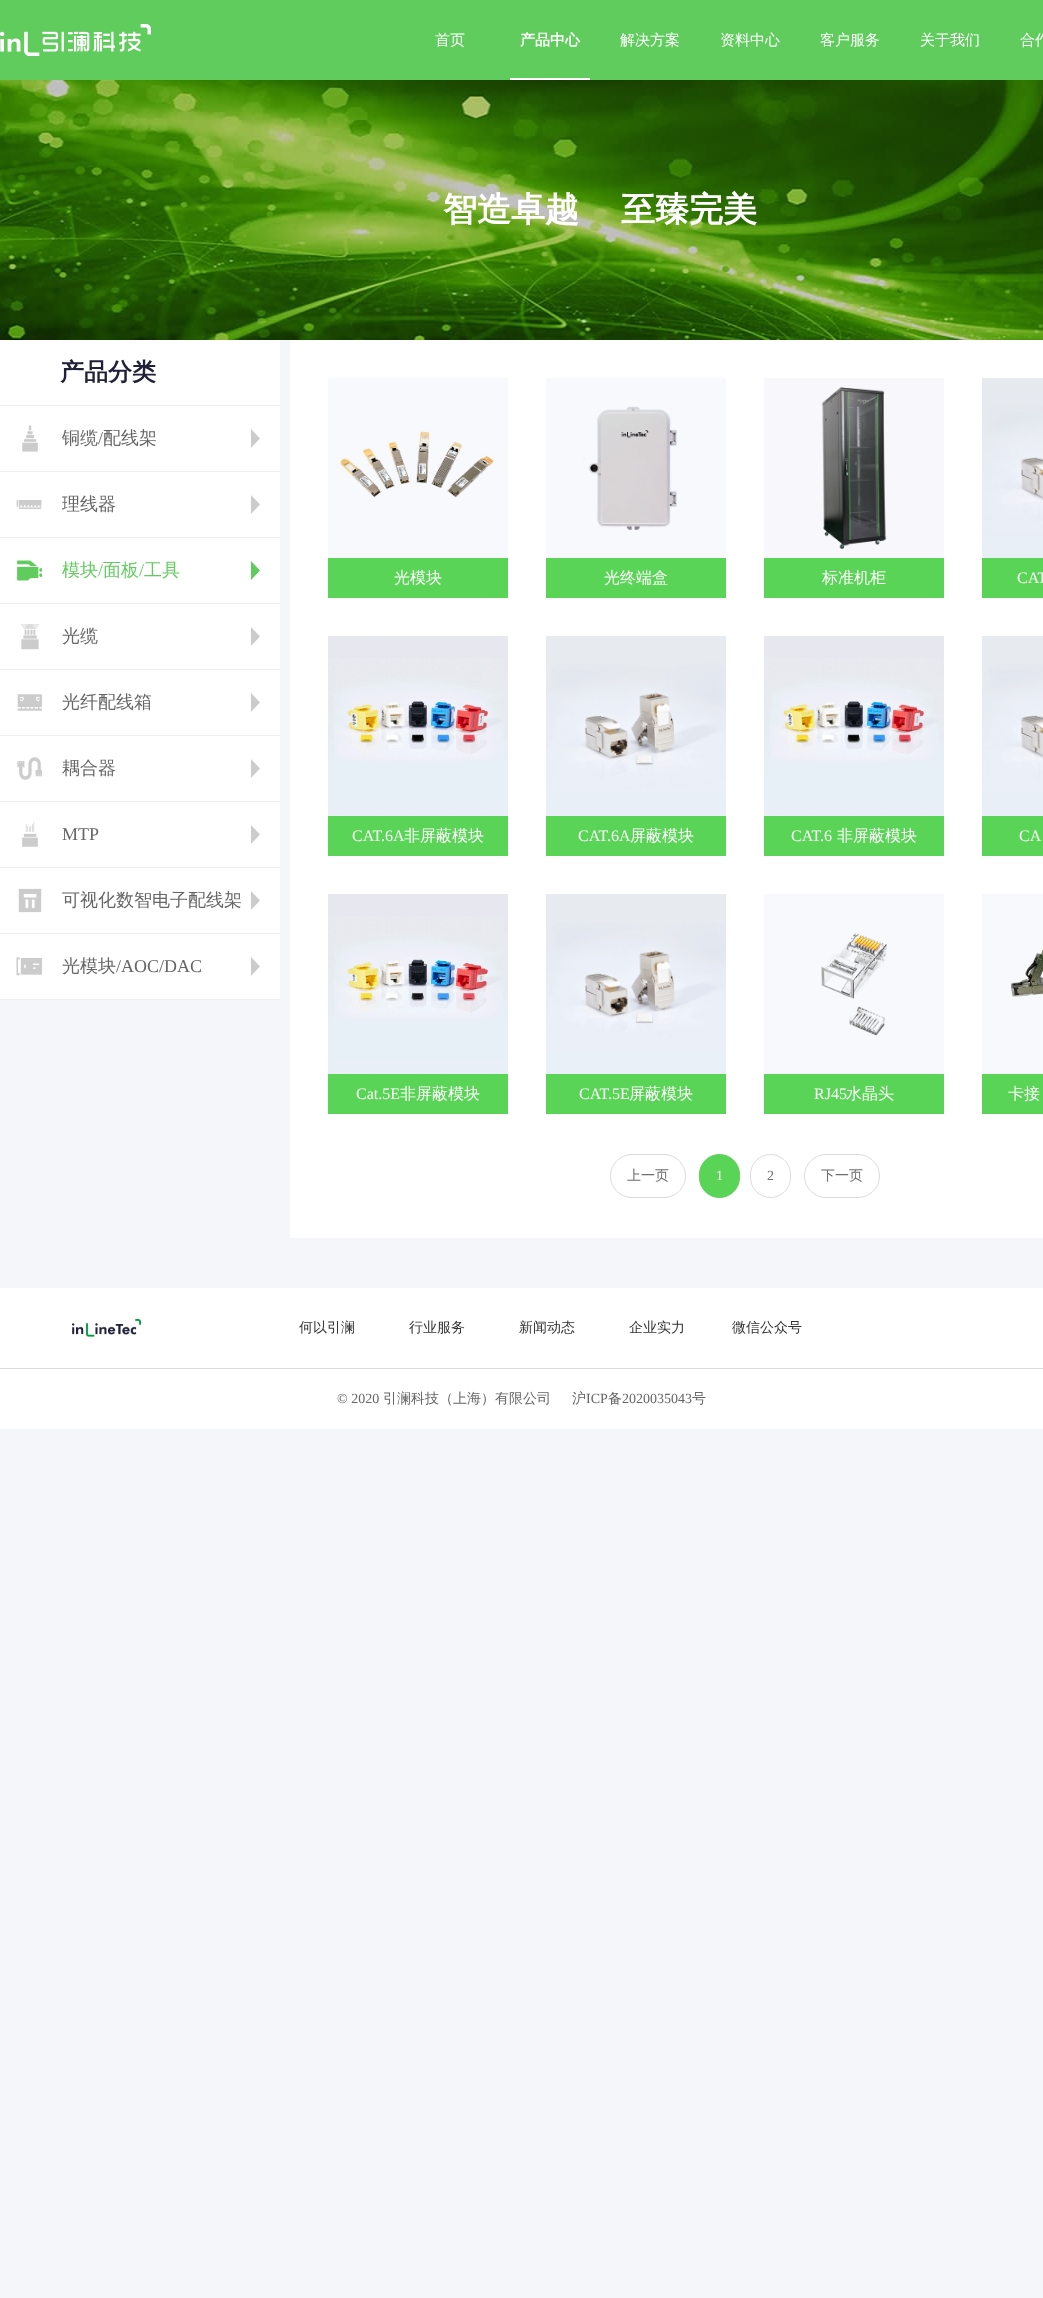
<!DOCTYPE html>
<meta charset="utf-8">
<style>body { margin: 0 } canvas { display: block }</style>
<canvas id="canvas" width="1043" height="2298"></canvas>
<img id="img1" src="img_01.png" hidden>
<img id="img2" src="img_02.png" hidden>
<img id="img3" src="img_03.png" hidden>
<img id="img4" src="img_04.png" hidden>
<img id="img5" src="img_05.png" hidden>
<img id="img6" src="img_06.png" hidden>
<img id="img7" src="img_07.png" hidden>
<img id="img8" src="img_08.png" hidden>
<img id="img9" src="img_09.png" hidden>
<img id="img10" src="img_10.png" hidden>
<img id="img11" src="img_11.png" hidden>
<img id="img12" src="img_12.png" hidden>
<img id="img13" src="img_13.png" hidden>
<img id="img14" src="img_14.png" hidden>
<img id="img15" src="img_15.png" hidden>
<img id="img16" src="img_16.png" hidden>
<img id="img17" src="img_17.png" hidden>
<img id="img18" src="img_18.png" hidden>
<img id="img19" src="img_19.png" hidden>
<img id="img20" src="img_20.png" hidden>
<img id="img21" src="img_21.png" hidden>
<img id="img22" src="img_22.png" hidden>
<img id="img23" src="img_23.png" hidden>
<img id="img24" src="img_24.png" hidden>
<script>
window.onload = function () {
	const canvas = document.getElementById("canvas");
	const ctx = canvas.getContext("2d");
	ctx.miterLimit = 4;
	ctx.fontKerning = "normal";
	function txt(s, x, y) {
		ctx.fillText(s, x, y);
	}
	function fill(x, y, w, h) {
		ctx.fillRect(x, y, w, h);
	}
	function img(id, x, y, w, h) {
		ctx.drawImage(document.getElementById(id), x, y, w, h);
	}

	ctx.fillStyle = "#F5F6FA";
	fill(0, 0, 1043, 2298);
	ctx.fillStyle = "#61CC5E";
	fill(0, 0, 1043, 80);
	img("img1", 0, 24, 151, 32);
	ctx.fillStyle = "#FFFFFF";
	fill(510, 78, 80, 2);
	img("img2", 0, 80, 1043, 260);
	fill(0, 340, 280, 659);
	ctx.fillStyle = "#EEEEEE";
	fill(0, 405, 280, 1);
	fill(0, 471, 280, 1);
	img("img3", 22, 425, 16, 27);
	ctx.fillStyle = "#CCCCCC";
	ctx.beginPath();
	ctx.moveTo(260, 438.5);
	ctx.lineTo(251, 448);
	ctx.lineTo(251, 429);
	ctx.closePath();
	ctx.fill();
	ctx.fillStyle = "#EEEEEE";
	fill(0, 537, 280, 1);
	img("img4", 16, 500, 26, 9);
	ctx.fillStyle = "#CCCCCC";
	ctx.beginPath();
	ctx.moveTo(260, 504.5);
	ctx.lineTo(251, 514);
	ctx.lineTo(251, 495);
	ctx.closePath();
	ctx.fill();
	ctx.fillStyle = "#EEEEEE";
	fill(0, 603, 280, 1);
	img("img5", 17, 560, 25, 21);
	ctx.fillStyle = "#61CC5E";
	ctx.beginPath();
	ctx.moveTo(260, 570.5);
	ctx.lineTo(251, 580);
	ctx.lineTo(251, 561);
	ctx.closePath();
	ctx.fill();
	ctx.fillStyle = "#EEEEEE";
	fill(0, 669, 280, 1);
	img("img6", 20, 624, 20, 26);
	ctx.fillStyle = "#CCCCCC";
	ctx.beginPath();
	ctx.moveTo(260, 636.5);
	ctx.lineTo(251, 646);
	ctx.lineTo(251, 627);
	ctx.closePath();
	ctx.fill();
	ctx.fillStyle = "#EEEEEE";
	fill(0, 735, 280, 1);
	img("img7", 17, 694, 25, 17);
	ctx.fillStyle = "#CCCCCC";
	ctx.beginPath();
	ctx.moveTo(260, 702.5);
	ctx.lineTo(251, 712);
	ctx.lineTo(251, 693);
	ctx.closePath();
	ctx.fill();
	ctx.fillStyle = "#EEEEEE";
	fill(0, 801, 280, 1);
	img("img8", 17, 757, 25, 23);
	ctx.fillStyle = "#CCCCCC";
	ctx.beginPath();
	ctx.moveTo(260, 768.5);
	ctx.lineTo(251, 778);
	ctx.lineTo(251, 759);
	ctx.closePath();
	ctx.fill();
	ctx.fillStyle = "#EEEEEE";
	fill(0, 867, 280, 1);
	img("img9", 22, 822, 16, 25);
	ctx.fillStyle = "#CCCCCC";
	ctx.beginPath();
	ctx.moveTo(260, 834.5);
	ctx.lineTo(251, 844);
	ctx.lineTo(251, 825);
	ctx.closePath();
	ctx.fill();
	ctx.fillStyle = "#EEEEEE";
	fill(0, 933, 280, 1);
	img("img10", 18, 888, 24, 25);
	ctx.fillStyle = "#CCCCCC";
	ctx.beginPath();
	ctx.moveTo(260, 900.5);
	ctx.lineTo(251, 910);
	ctx.lineTo(251, 891);
	ctx.closePath();
	ctx.fill();
	ctx.fillStyle = "#EEEEEE";
	fill(0, 999, 280, 1);
	img("img11", 16, 957, 26, 19);
	ctx.fillStyle = "#CCCCCC";
	ctx.beginPath();
	ctx.moveTo(260, 966.5);
	ctx.lineTo(251, 976);
	ctx.lineTo(251, 957);
	ctx.closePath();
	ctx.fill();
	ctx.fillStyle = "#FFFFFF";
	fill(290, 340, 753, 898);
	img("img12", 328, 378, 180, 180);
	ctx.fillStyle = "#5AD456";
	fill(328, 558, 180, 40);
	img("img13", 546, 378, 180, 180);
	fill(546, 558, 180, 40);
	img("img14", 764, 378, 180, 180);
	fill(764, 558, 180, 40);
	img("img15", 982, 378, 61, 180);
	fill(982, 558, 61, 40);
	img("img16", 328, 636, 180, 180);
	fill(328, 816, 180, 40);
	img("img17", 546, 636, 180, 180);
	fill(546, 816, 180, 40);
	img("img18", 764, 636, 180, 180);
	fill(764, 816, 180, 40);
	img("img19", 982, 636, 61, 180);
	fill(982, 816, 61, 40);
	img("img20", 328, 894, 180, 180);
	fill(328, 1074, 180, 40);
	img("img21", 546, 894, 180, 180);
	fill(546, 1074, 180, 40);
	img("img22", 764, 894, 180, 180);
	fill(764, 1074, 180, 40);
	img("img23", 982, 894, 61, 180);
	fill(982, 1074, 61, 40);
	ctx.beginPath();
	ctx.roundRect(610.5, 1154.5, 75, 43, 21.5);
	ctx.strokeStyle = "#DCDCDC";
	ctx.stroke();
	ctx.beginPath();
	ctx.roundRect(699.5, 1154.5, 40, 43, 20);
	ctx.fill();
	ctx.strokeStyle = "#5AD456";
	ctx.stroke();
	ctx.beginPath();
	ctx.roundRect(750.5, 1154.5, 40, 43, 20);
	ctx.strokeStyle = "#DCDCDC";
	ctx.stroke();
	ctx.beginPath();
	ctx.roundRect(804.5, 1154.5, 75, 43, 21.5);
	ctx.stroke();
	ctx.fillStyle = "#FFFFFF";
	fill(0, 1288, 1043, 80);
	ctx.fillStyle = "#DBDBDB";
	fill(0, 1368, 1043, 1);
	img("img24", 72, 1319, 69, 18);
	ctx.fillStyle = "#FFFFFF";
	fill(0, 1369, 1043, 60);
	ctx.font = "500 15px WenQuanYi Zen Hei";
	txt("首页", 435, 45);
	ctx.font = "bold 15px WenQuanYi Zen Hei";
	txt("产品中心", 520, 45);
	ctx.font = "500 15px WenQuanYi Zen Hei";
	txt("解决方案", 620, 45);
	txt("资料中心", 720, 45);
	txt("客户服务", 820, 45);
	txt("关于我们", 920, 45);
	txt("合作", 1020, 45);
	ctx.font = "bold 34px WenQuanYi Zen Hei";
	txt("智造卓越", 443, 221);
	txt("至臻完美", 621, 221);
	ctx.font = "bold 24px WenQuanYi Zen Hei";
	ctx.fillStyle = "#202139";
	txt("产品分类", 60, 380);
	ctx.font = "500 18px WenQuanYi Zen Hei";
	ctx.fillStyle = "#666666";
	txt("铜缆", 62, 444);
	ctx.font = "18px Liberation Serif";
	txt("/", 98, 444);
	ctx.font = "500 18px WenQuanYi Zen Hei";
	txt("配线架", 103, 444);
	txt("理线器", 62, 510);
	ctx.fillStyle = "#61CC5E";
	txt("模块", 62, 576);
	ctx.font = "18px Liberation Serif";
	txt("/", 98, 576);
	ctx.font = "500 18px WenQuanYi Zen Hei";
	txt("面板", 103, 576);
	ctx.font = "18px Liberation Serif";
	txt("/", 139, 576);
	ctx.font = "500 18px WenQuanYi Zen Hei";
	txt("工具", 144, 576);
	ctx.fillStyle = "#666666";
	txt("光缆", 62, 642);
	txt("光纤配线箱", 62, 708);
	txt("耦合器", 62, 774);
	ctx.font = "18px Liberation Serif";
	txt("MTP", 62, 840);
	ctx.font = "500 18px WenQuanYi Zen Hei";
	txt("可视化数智电子配线架", 62, 906);
	txt("光模块", 62, 972);
	ctx.font = "18px Liberation Serif";
	txt("/AOC/DAC", 116, 972);
	ctx.font = "500 16px WenQuanYi Zen Hei";
	ctx.fillStyle = "#FFFFFF";
	txt("光模块", 394, 583);
	txt("光终端盒", 604, 583);
	txt("标准机柜", 822, 583);
	ctx.font = "16px Liberation Serif";
	txt("CAT", 1017, 583);
	txt("CAT.6A", 352, 841);
	ctx.font = "500 16px WenQuanYi Zen Hei";
	txt("非屏蔽模块", 404, 841);
	ctx.font = "16px Liberation Serif";
	txt("CAT.6A", 578, 841);
	ctx.font = "500 16px WenQuanYi Zen Hei";
	txt("屏蔽模块", 630, 841);
	ctx.font = "16px Liberation Serif";
	txt("CAT.6", 791, 841);
	ctx.font = "500 16px WenQuanYi Zen Hei";
	txt("非屏蔽模块", 837, 841);
	ctx.font = "16px Liberation Serif";
	txt("CA", 1019, 841);
	txt("Cat.5E", 356, 1099);
	ctx.font = "500 16px WenQuanYi Zen Hei";
	txt("非屏蔽模块", 400, 1099);
	ctx.font = "16px Liberation Serif";
	txt("CAT.5E", 579, 1099);
	ctx.font = "500 16px WenQuanYi Zen Hei";
	txt("屏蔽模块", 629, 1099);
	ctx.font = "16px Liberation Serif";
	txt("RJ45", 814, 1099);
	ctx.font = "500 16px WenQuanYi Zen Hei";
	txt("水晶头", 846, 1099);
	txt("卡接", 1008, 1099);
	ctx.font = "500 14px WenQuanYi Zen Hei";
	ctx.fillStyle = "#6E6E6E";
	txt("上一页", 627, 1180);
	ctx.font = "14px Liberation Serif";
	ctx.fillStyle = "#FFFFFF";
	txt("1", 716, 1180);
	ctx.fillStyle = "#6E6E6E";
	txt("2", 767, 1180);
	ctx.font = "500 14px WenQuanYi Zen Hei";
	txt("下一页", 821, 1180);
	ctx.fillStyle = "#333333";
	txt("何以引澜", 299, 1332);
	txt("行业服务", 409, 1332);
	txt("新闻动态", 519, 1332);
	txt("企业实力", 629, 1332);
	txt("微信公众号", 732, 1332);
	ctx.font = "14px Liberation Serif";
	ctx.fillStyle = "#666666";
	txt("© 2020", 337, 1403);
	ctx.font = "500 14px WenQuanYi Zen Hei";
	txt("引澜科技（上海）有限公司", 383, 1403);
	txt("沪", 572, 1403);
	ctx.font = "14px Liberation Serif";
	txt("ICP", 586, 1403);
	ctx.font = "500 14px WenQuanYi Zen Hei";
	txt("备", 608, 1403);
	ctx.font = "14px Liberation Serif";
	txt("2020035043", 622, 1403);
	ctx.font = "500 14px WenQuanYi Zen Hei";
	txt("号", 692, 1403);
};
</script>
